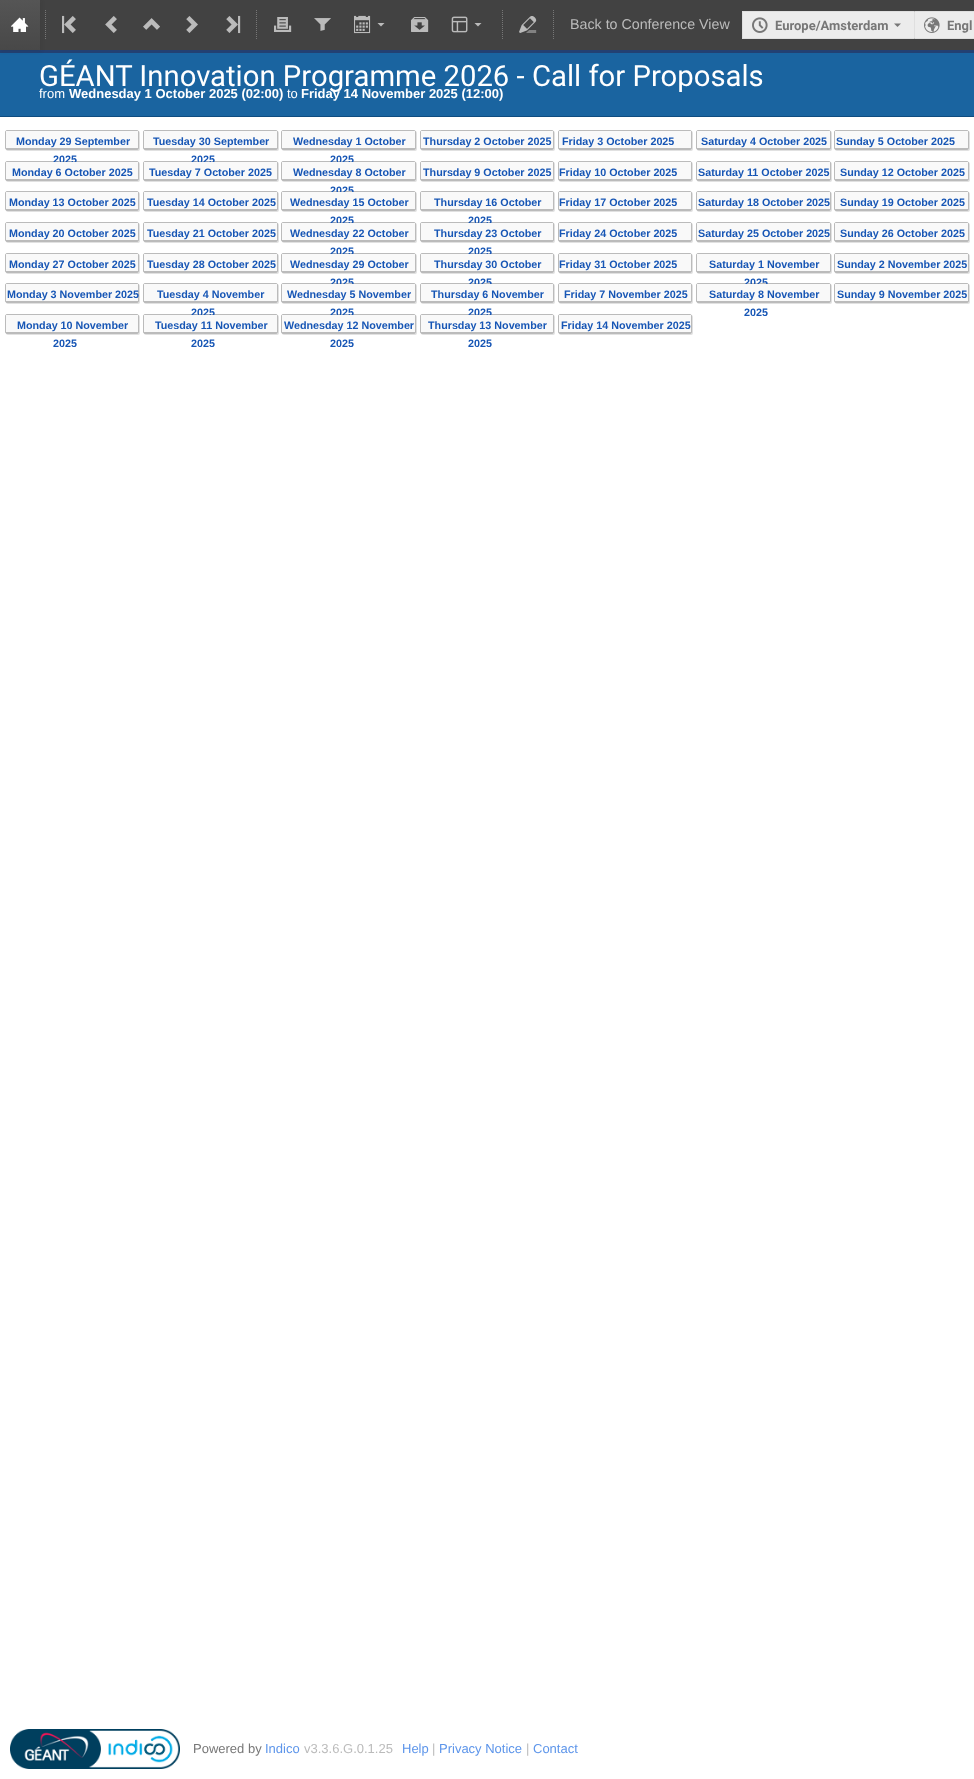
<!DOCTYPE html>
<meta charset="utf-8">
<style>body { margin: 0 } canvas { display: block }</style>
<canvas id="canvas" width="974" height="1779"></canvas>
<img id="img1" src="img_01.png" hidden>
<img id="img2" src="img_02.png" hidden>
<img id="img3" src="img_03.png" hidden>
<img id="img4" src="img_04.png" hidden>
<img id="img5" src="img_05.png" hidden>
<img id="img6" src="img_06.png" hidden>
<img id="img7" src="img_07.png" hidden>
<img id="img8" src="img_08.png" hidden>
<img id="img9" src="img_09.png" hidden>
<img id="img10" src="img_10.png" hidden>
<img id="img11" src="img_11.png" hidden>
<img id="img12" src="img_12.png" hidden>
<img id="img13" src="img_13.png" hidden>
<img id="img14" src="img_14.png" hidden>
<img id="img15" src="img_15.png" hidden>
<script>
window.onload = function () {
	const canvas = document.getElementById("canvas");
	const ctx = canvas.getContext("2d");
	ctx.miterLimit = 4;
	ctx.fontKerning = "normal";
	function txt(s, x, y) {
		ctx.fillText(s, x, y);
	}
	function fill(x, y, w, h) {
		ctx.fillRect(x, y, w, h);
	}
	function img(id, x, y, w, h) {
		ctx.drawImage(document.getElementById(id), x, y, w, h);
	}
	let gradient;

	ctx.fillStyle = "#FFFFFF";
	fill(0, 0, 974, 1779);
	ctx.fillStyle = "#424242";
	fill(40, 0, 934, 50);
	ctx.fillStyle = "#1A64A0";
	fill(0, 53, 974, 63);
	ctx.fillStyle = "#234173";
	fill(0, 50, 974, 3);
	ctx.fillStyle = "rgba(20, 20, 20, 0.1)";
	ctx.filter = "blur(2px)";
	ctx.beginPath();
	ctx.rect(1, 1, 40, 50);
	ctx.fill();
	ctx.filter = "none";
	gradient = ctx.createLinearGradient(20, 0, 20, 50);
	gradient.addColorStop(0, "#555555");
	gradient.addColorStop(1, "#484848");
	ctx.fillStyle = gradient;
	fill(0, 0, 40, 50);
	img("img1", 11, 17, 18, 15);
	ctx.beginPath();
	ctx.moveTo(45.5, 10);
	ctx.lineTo(45.5, 40);
	ctx.strokeStyle = "#777777";
	ctx.setLineDash([1, 1]);
	ctx.stroke();
	img("img2", 62, 15, 14, 19);
	img("img3", 105, 16, 12, 17);
	img("img4", 143, 18, 17, 12);
	img("img5", 186, 16, 12, 17);
	img("img6", 226, 15, 15, 19);
	ctx.beginPath();
	ctx.moveTo(256.5, 10);
	ctx.lineTo(256.5, 40);
	ctx.stroke();
	img("img7", 274, 17, 18, 15);
	img("img8", 314, 18, 17, 13);
	img("img9", 354, 15, 17, 19);
	ctx.fillStyle = "#BBBBBB";
	ctx.beginPath();
	ctx.moveTo(377.5, 23);
	ctx.lineTo(381, 26.5);
	ctx.lineTo(384.5, 23);
	ctx.closePath();
	ctx.fill();
	img("img10", 411, 17, 18, 15);
	img("img11", 451, 16, 17, 17);
	ctx.beginPath();
	ctx.moveTo(474.5, 23);
	ctx.lineTo(478, 26.5);
	ctx.lineTo(481.5, 23);
	ctx.closePath();
	ctx.fill();
	ctx.beginPath();
	ctx.moveTo(502.5, 10);
	ctx.lineTo(502.5, 40);
	ctx.stroke();
	img("img12", 519, 16, 18, 17);
	ctx.beginPath();
	ctx.moveTo(553.5, 10);
	ctx.lineTo(553.5, 40);
	ctx.stroke();
	ctx.fillStyle = "#ECECEC";
	fill(743, 12, 171, 26);
	ctx.fillStyle = "#DFDFDF";
	fill(742, 11, 172, 1);
	fill(742, 38, 172, 1);
	fill(742, 11, 1, 28);
	img("img13", 752, 17, 16, 16);
	ctx.fillStyle = "#777777";
	ctx.beginPath();
	ctx.moveTo(894, 23.5);
	ctx.lineTo(897.5, 27);
	ctx.lineTo(901, 23.5);
	ctx.closePath();
	ctx.fill();
	ctx.fillStyle = "#ECECEC";
	ctx.beginPath();
	ctx.rect(914.5, 11.5, 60, 27);
	ctx.fill();
	ctx.strokeStyle = "#DFDFDF";
	ctx.setLineDash([]);
	ctx.stroke();
	img("img14", 924, 17, 16, 16);
	ctx.fillStyle = "#0F4C80";
	fill(0, 116, 974, 1);
	ctx.fillStyle = "#E1E1E1";
	ctx.filter = "blur(0.5px)";
	ctx.beginPath();
	ctx.roundRect(6, 131, 134, 20, 2);
	ctx.fill();
	ctx.filter = "none";
	ctx.beginPath();
	ctx.roundRect(5.5, 130.5, 133, 19, 1.5);
	ctx.strokeStyle = "#BBBBBB";
	ctx.stroke();
	ctx.fillStyle = "#F9F9F9";
	fill(6, 131, 132, 17);
	ctx.fillStyle = "#BBBBBB";
	fill(6, 148, 132, 1);
	ctx.fillStyle = "#E1E1E1";
	ctx.filter = "blur(0.5px)";
	ctx.beginPath();
	ctx.roundRect(144, 131, 135, 20, 2);
	ctx.fill();
	ctx.filter = "none";
	ctx.beginPath();
	ctx.roundRect(143.5, 130.5, 134, 19, 1.5);
	ctx.stroke();
	ctx.fillStyle = "#F9F9F9";
	fill(144, 131, 133, 17);
	ctx.fillStyle = "#BBBBBB";
	fill(144, 148, 133, 1);
	ctx.fillStyle = "#E1E1E1";
	ctx.filter = "blur(0.5px)";
	ctx.beginPath();
	ctx.roundRect(282, 131, 135, 20, 2);
	ctx.fill();
	ctx.filter = "none";
	ctx.beginPath();
	ctx.roundRect(281.5, 130.5, 134, 19, 1.5);
	ctx.stroke();
	ctx.fillStyle = "#F9F9F9";
	fill(282, 131, 133, 17);
	ctx.fillStyle = "#BBBBBB";
	fill(282, 148, 133, 1);
	ctx.fillStyle = "#E1E1E1";
	ctx.filter = "blur(0.5px)";
	ctx.beginPath();
	ctx.roundRect(421, 131, 134, 20, 2);
	ctx.fill();
	ctx.filter = "none";
	ctx.beginPath();
	ctx.roundRect(420.5, 130.5, 133, 19, 1.5);
	ctx.stroke();
	ctx.fillStyle = "#F9F9F9";
	fill(421, 131, 132, 17);
	ctx.fillStyle = "#BBBBBB";
	fill(421, 148, 132, 1);
	ctx.fillStyle = "#E1E1E1";
	ctx.filter = "blur(0.5px)";
	ctx.beginPath();
	ctx.roundRect(559, 131, 134, 20, 2);
	ctx.fill();
	ctx.filter = "none";
	ctx.beginPath();
	ctx.roundRect(558.5, 130.5, 133, 19, 1.5);
	ctx.stroke();
	ctx.fillStyle = "#F9F9F9";
	fill(559, 131, 132, 17);
	ctx.fillStyle = "#BBBBBB";
	fill(559, 148, 132, 1);
	ctx.fillStyle = "#E1E1E1";
	ctx.filter = "blur(0.5px)";
	ctx.beginPath();
	ctx.roundRect(697, 131, 135, 20, 2);
	ctx.fill();
	ctx.filter = "none";
	ctx.beginPath();
	ctx.roundRect(696.5, 130.5, 134, 19, 1.5);
	ctx.stroke();
	ctx.fillStyle = "#F9F9F9";
	fill(697, 131, 133, 17);
	ctx.fillStyle = "#BBBBBB";
	fill(697, 148, 133, 1);
	ctx.fillStyle = "#E1E1E1";
	ctx.filter = "blur(0.5px)";
	ctx.beginPath();
	ctx.roundRect(835, 131, 135, 20, 2);
	ctx.fill();
	ctx.filter = "none";
	ctx.beginPath();
	ctx.roundRect(834.5, 130.5, 134, 19, 1.5);
	ctx.stroke();
	ctx.fillStyle = "#F9F9F9";
	fill(835, 131, 133, 17);
	ctx.fillStyle = "#BBBBBB";
	fill(835, 148, 133, 1);
	ctx.fillStyle = "#E1E1E1";
	ctx.filter = "blur(0.5px)";
	ctx.beginPath();
	ctx.roundRect(6, 162, 134, 20, 2);
	ctx.fill();
	ctx.filter = "none";
	ctx.beginPath();
	ctx.roundRect(5.5, 161.5, 133, 19, 1.5);
	ctx.stroke();
	ctx.fillStyle = "#BBBBBB";
	fill(6, 179, 132, 1);
	ctx.fillStyle = "#E1E1E1";
	ctx.filter = "blur(0.5px)";
	ctx.beginPath();
	ctx.roundRect(144, 162, 135, 20, 2);
	ctx.fill();
	ctx.filter = "none";
	ctx.beginPath();
	ctx.roundRect(143.5, 161.5, 134, 19, 1.5);
	ctx.stroke();
	ctx.fillStyle = "#BBBBBB";
	fill(144, 179, 133, 1);
	ctx.fillStyle = "#E1E1E1";
	ctx.filter = "blur(0.5px)";
	ctx.beginPath();
	ctx.roundRect(282, 162, 135, 20, 2);
	ctx.fill();
	ctx.filter = "none";
	ctx.beginPath();
	ctx.roundRect(281.5, 161.5, 134, 19, 1.5);
	ctx.stroke();
	ctx.fillStyle = "#BBBBBB";
	fill(282, 179, 133, 1);
	ctx.fillStyle = "#E1E1E1";
	ctx.filter = "blur(0.5px)";
	ctx.beginPath();
	ctx.roundRect(421, 162, 134, 20, 2);
	ctx.fill();
	ctx.filter = "none";
	ctx.beginPath();
	ctx.roundRect(420.5, 161.5, 133, 19, 1.5);
	ctx.stroke();
	ctx.fillStyle = "#F9F9F9";
	fill(421, 162, 132, 17);
	ctx.fillStyle = "#BBBBBB";
	fill(421, 179, 132, 1);
	ctx.fillStyle = "#E1E1E1";
	ctx.filter = "blur(0.5px)";
	ctx.beginPath();
	ctx.roundRect(559, 162, 134, 20, 2);
	ctx.fill();
	ctx.filter = "none";
	ctx.beginPath();
	ctx.roundRect(558.5, 161.5, 133, 19, 1.5);
	ctx.stroke();
	ctx.fillStyle = "#F9F9F9";
	fill(559, 162, 132, 17);
	ctx.fillStyle = "#BBBBBB";
	fill(559, 179, 132, 1);
	ctx.fillStyle = "#E1E1E1";
	ctx.filter = "blur(0.5px)";
	ctx.beginPath();
	ctx.roundRect(697, 162, 135, 20, 2);
	ctx.fill();
	ctx.filter = "none";
	ctx.beginPath();
	ctx.roundRect(696.5, 161.5, 134, 19, 1.5);
	ctx.stroke();
	ctx.fillStyle = "#F9F9F9";
	fill(697, 162, 133, 17);
	ctx.fillStyle = "#BBBBBB";
	fill(697, 179, 133, 1);
	ctx.fillStyle = "#E1E1E1";
	ctx.filter = "blur(0.5px)";
	ctx.beginPath();
	ctx.roundRect(835, 162, 135, 20, 2);
	ctx.fill();
	ctx.filter = "none";
	ctx.beginPath();
	ctx.roundRect(834.5, 161.5, 134, 19, 1.5);
	ctx.stroke();
	ctx.fillStyle = "#F9F9F9";
	fill(835, 162, 133, 17);
	ctx.fillStyle = "#BBBBBB";
	fill(835, 179, 133, 1);
	ctx.fillStyle = "#E1E1E1";
	ctx.filter = "blur(0.5px)";
	ctx.beginPath();
	ctx.roundRect(6, 192, 134, 20, 2);
	ctx.fill();
	ctx.filter = "none";
	ctx.beginPath();
	ctx.roundRect(5.5, 191.5, 133, 19, 1.5);
	ctx.stroke();
	ctx.fillStyle = "#F9F9F9";
	fill(6, 192, 132, 17);
	ctx.fillStyle = "#BBBBBB";
	fill(6, 209, 132, 1);
	ctx.fillStyle = "#E1E1E1";
	ctx.filter = "blur(0.5px)";
	ctx.beginPath();
	ctx.roundRect(144, 192, 135, 20, 2);
	ctx.fill();
	ctx.filter = "none";
	ctx.beginPath();
	ctx.roundRect(143.5, 191.5, 134, 19, 1.5);
	ctx.stroke();
	ctx.fillStyle = "#F9F9F9";
	fill(144, 192, 133, 17);
	ctx.fillStyle = "#BBBBBB";
	fill(144, 209, 133, 1);
	ctx.fillStyle = "#E1E1E1";
	ctx.filter = "blur(0.5px)";
	ctx.beginPath();
	ctx.roundRect(282, 192, 135, 20, 2);
	ctx.fill();
	ctx.filter = "none";
	ctx.beginPath();
	ctx.roundRect(281.5, 191.5, 134, 19, 1.5);
	ctx.stroke();
	ctx.fillStyle = "#BBBBBB";
	fill(282, 209, 133, 1);
	ctx.fillStyle = "#E1E1E1";
	ctx.filter = "blur(0.5px)";
	ctx.beginPath();
	ctx.roundRect(421, 192, 134, 20, 2);
	ctx.fill();
	ctx.filter = "none";
	ctx.beginPath();
	ctx.roundRect(420.5, 191.5, 133, 19, 1.5);
	ctx.stroke();
	ctx.fillStyle = "#F9F9F9";
	fill(421, 192, 132, 17);
	ctx.fillStyle = "#BBBBBB";
	fill(421, 209, 132, 1);
	ctx.fillStyle = "#E1E1E1";
	ctx.filter = "blur(0.5px)";
	ctx.beginPath();
	ctx.roundRect(559, 192, 134, 20, 2);
	ctx.fill();
	ctx.filter = "none";
	ctx.beginPath();
	ctx.roundRect(558.5, 191.5, 133, 19, 1.5);
	ctx.stroke();
	ctx.fillStyle = "#F9F9F9";
	fill(559, 192, 132, 17);
	ctx.fillStyle = "#BBBBBB";
	fill(559, 209, 132, 1);
	ctx.fillStyle = "#E1E1E1";
	ctx.filter = "blur(0.5px)";
	ctx.beginPath();
	ctx.roundRect(697, 192, 135, 20, 2);
	ctx.fill();
	ctx.filter = "none";
	ctx.beginPath();
	ctx.roundRect(696.5, 191.5, 134, 19, 1.5);
	ctx.stroke();
	ctx.fillStyle = "#F9F9F9";
	fill(697, 192, 133, 17);
	ctx.fillStyle = "#BBBBBB";
	fill(697, 209, 133, 1);
	ctx.fillStyle = "#E1E1E1";
	ctx.filter = "blur(0.5px)";
	ctx.beginPath();
	ctx.roundRect(835, 192, 135, 20, 2);
	ctx.fill();
	ctx.filter = "none";
	ctx.beginPath();
	ctx.roundRect(834.5, 191.5, 134, 19, 1.5);
	ctx.stroke();
	ctx.fillStyle = "#F9F9F9";
	fill(835, 192, 133, 17);
	ctx.fillStyle = "#BBBBBB";
	fill(835, 209, 133, 1);
	ctx.fillStyle = "#E1E1E1";
	ctx.filter = "blur(0.5px)";
	ctx.beginPath();
	ctx.roundRect(6, 223, 134, 20, 2);
	ctx.fill();
	ctx.filter = "none";
	ctx.beginPath();
	ctx.roundRect(5.5, 222.5, 133, 19, 1.5);
	ctx.stroke();
	ctx.fillStyle = "#F9F9F9";
	fill(6, 223, 132, 17);
	ctx.fillStyle = "#BBBBBB";
	fill(6, 240, 132, 1);
	ctx.fillStyle = "#E1E1E1";
	ctx.filter = "blur(0.5px)";
	ctx.beginPath();
	ctx.roundRect(144, 223, 135, 20, 2);
	ctx.fill();
	ctx.filter = "none";
	ctx.beginPath();
	ctx.roundRect(143.5, 222.5, 134, 19, 1.5);
	ctx.stroke();
	ctx.fillStyle = "#F9F9F9";
	fill(144, 223, 133, 17);
	ctx.fillStyle = "#BBBBBB";
	fill(144, 240, 133, 1);
	ctx.fillStyle = "#E1E1E1";
	ctx.filter = "blur(0.5px)";
	ctx.beginPath();
	ctx.roundRect(282, 223, 135, 20, 2);
	ctx.fill();
	ctx.filter = "none";
	ctx.beginPath();
	ctx.roundRect(281.5, 222.5, 134, 19, 1.5);
	ctx.stroke();
	ctx.fillStyle = "#BBBBBB";
	fill(282, 240, 133, 1);
	ctx.fillStyle = "#E1E1E1";
	ctx.filter = "blur(0.5px)";
	ctx.beginPath();
	ctx.roundRect(421, 223, 134, 20, 2);
	ctx.fill();
	ctx.filter = "none";
	ctx.beginPath();
	ctx.roundRect(420.5, 222.5, 133, 19, 1.5);
	ctx.stroke();
	ctx.fillStyle = "#BBBBBB";
	fill(421, 240, 132, 1);
	ctx.fillStyle = "#E1E1E1";
	ctx.filter = "blur(0.5px)";
	ctx.beginPath();
	ctx.roundRect(559, 223, 134, 20, 2);
	ctx.fill();
	ctx.filter = "none";
	ctx.beginPath();
	ctx.roundRect(558.5, 222.5, 133, 19, 1.5);
	ctx.stroke();
	ctx.fillStyle = "#F9F9F9";
	fill(559, 223, 132, 17);
	ctx.fillStyle = "#BBBBBB";
	fill(559, 240, 132, 1);
	ctx.fillStyle = "#E1E1E1";
	ctx.filter = "blur(0.5px)";
	ctx.beginPath();
	ctx.roundRect(697, 223, 135, 20, 2);
	ctx.fill();
	ctx.filter = "none";
	ctx.beginPath();
	ctx.roundRect(696.5, 222.5, 134, 19, 1.5);
	ctx.stroke();
	ctx.fillStyle = "#F9F9F9";
	fill(697, 223, 133, 17);
	ctx.fillStyle = "#BBBBBB";
	fill(697, 240, 133, 1);
	ctx.fillStyle = "#E1E1E1";
	ctx.filter = "blur(0.5px)";
	ctx.beginPath();
	ctx.roundRect(835, 223, 135, 20, 2);
	ctx.fill();
	ctx.filter = "none";
	ctx.beginPath();
	ctx.roundRect(834.5, 222.5, 134, 19, 1.5);
	ctx.stroke();
	ctx.fillStyle = "#F9F9F9";
	fill(835, 223, 133, 17);
	ctx.fillStyle = "#BBBBBB";
	fill(835, 240, 133, 1);
	ctx.fillStyle = "#E1E1E1";
	ctx.filter = "blur(0.5px)";
	ctx.beginPath();
	ctx.roundRect(6, 254, 134, 20, 2);
	ctx.fill();
	ctx.filter = "none";
	ctx.beginPath();
	ctx.roundRect(5.5, 253.5, 133, 19, 1.5);
	ctx.stroke();
	ctx.fillStyle = "#F9F9F9";
	fill(6, 254, 132, 17);
	ctx.fillStyle = "#BBBBBB";
	fill(6, 271, 132, 1);
	ctx.fillStyle = "#E1E1E1";
	ctx.filter = "blur(0.5px)";
	ctx.beginPath();
	ctx.roundRect(144, 254, 135, 20, 2);
	ctx.fill();
	ctx.filter = "none";
	ctx.beginPath();
	ctx.roundRect(143.5, 253.5, 134, 19, 1.5);
	ctx.stroke();
	ctx.fillStyle = "#F9F9F9";
	fill(144, 254, 133, 17);
	ctx.fillStyle = "#BBBBBB";
	fill(144, 271, 133, 1);
	ctx.fillStyle = "#E1E1E1";
	ctx.filter = "blur(0.5px)";
	ctx.beginPath();
	ctx.roundRect(282, 254, 135, 20, 2);
	ctx.fill();
	ctx.filter = "none";
	ctx.beginPath();
	ctx.roundRect(281.5, 253.5, 134, 19, 1.5);
	ctx.stroke();
	ctx.fillStyle = "#BBBBBB";
	fill(282, 271, 133, 1);
	ctx.fillStyle = "#E1E1E1";
	ctx.filter = "blur(0.5px)";
	ctx.beginPath();
	ctx.roundRect(421, 254, 134, 20, 2);
	ctx.fill();
	ctx.filter = "none";
	ctx.beginPath();
	ctx.roundRect(420.5, 253.5, 133, 19, 1.5);
	ctx.stroke();
	ctx.fillStyle = "#BBBBBB";
	fill(421, 271, 132, 1);
	ctx.fillStyle = "#E1E1E1";
	ctx.filter = "blur(0.5px)";
	ctx.beginPath();
	ctx.roundRect(559, 254, 134, 20, 2);
	ctx.fill();
	ctx.filter = "none";
	ctx.beginPath();
	ctx.roundRect(558.5, 253.5, 133, 19, 1.5);
	ctx.stroke();
	ctx.fillStyle = "#F9F9F9";
	fill(559, 254, 132, 17);
	ctx.fillStyle = "#BBBBBB";
	fill(559, 271, 132, 1);
	ctx.fillStyle = "#E1E1E1";
	ctx.filter = "blur(0.5px)";
	ctx.beginPath();
	ctx.roundRect(697, 254, 135, 20, 2);
	ctx.fill();
	ctx.filter = "none";
	ctx.beginPath();
	ctx.roundRect(696.5, 253.5, 134, 19, 1.5);
	ctx.stroke();
	ctx.fillStyle = "#F9F9F9";
	fill(697, 254, 133, 17);
	ctx.fillStyle = "#BBBBBB";
	fill(697, 271, 133, 1);
	ctx.fillStyle = "#E1E1E1";
	ctx.filter = "blur(0.5px)";
	ctx.beginPath();
	ctx.roundRect(835, 254, 135, 20, 2);
	ctx.fill();
	ctx.filter = "none";
	ctx.beginPath();
	ctx.roundRect(834.5, 253.5, 134, 19, 1.5);
	ctx.stroke();
	ctx.fillStyle = "#F9F9F9";
	fill(835, 254, 133, 17);
	ctx.fillStyle = "#BBBBBB";
	fill(835, 271, 133, 1);
	ctx.fillStyle = "#E1E1E1";
	ctx.filter = "blur(0.5px)";
	ctx.beginPath();
	ctx.roundRect(6, 284, 134, 20, 2);
	ctx.fill();
	ctx.filter = "none";
	ctx.beginPath();
	ctx.roundRect(5.5, 283.5, 133, 19, 1.5);
	ctx.stroke();
	ctx.fillStyle = "#F9F9F9";
	fill(6, 284, 132, 17);
	ctx.fillStyle = "#BBBBBB";
	fill(6, 301, 132, 1);
	ctx.fillStyle = "#E1E1E1";
	ctx.filter = "blur(0.5px)";
	ctx.beginPath();
	ctx.roundRect(144, 284, 135, 20, 2);
	ctx.fill();
	ctx.filter = "none";
	ctx.beginPath();
	ctx.roundRect(143.5, 283.5, 134, 19, 1.5);
	ctx.stroke();
	ctx.fillStyle = "#F9F9F9";
	fill(144, 284, 133, 17);
	ctx.fillStyle = "#BBBBBB";
	fill(144, 301, 133, 1);
	ctx.fillStyle = "#E1E1E1";
	ctx.filter = "blur(0.5px)";
	ctx.beginPath();
	ctx.roundRect(282, 284, 135, 20, 2);
	ctx.fill();
	ctx.filter = "none";
	ctx.beginPath();
	ctx.roundRect(281.5, 283.5, 134, 19, 1.5);
	ctx.stroke();
	ctx.fillStyle = "#BBBBBB";
	fill(282, 301, 133, 1);
	ctx.fillStyle = "#E1E1E1";
	ctx.filter = "blur(0.5px)";
	ctx.beginPath();
	ctx.roundRect(421, 284, 134, 20, 2);
	ctx.fill();
	ctx.filter = "none";
	ctx.beginPath();
	ctx.roundRect(420.5, 283.5, 133, 19, 1.5);
	ctx.stroke();
	ctx.fillStyle = "#BBBBBB";
	fill(421, 301, 132, 1);
	ctx.fillStyle = "#E1E1E1";
	ctx.filter = "blur(0.5px)";
	ctx.beginPath();
	ctx.roundRect(559, 284, 134, 20, 2);
	ctx.fill();
	ctx.filter = "none";
	ctx.beginPath();
	ctx.roundRect(558.5, 283.5, 133, 19, 1.5);
	ctx.stroke();
	ctx.fillStyle = "#F9F9F9";
	fill(559, 284, 132, 17);
	ctx.fillStyle = "#BBBBBB";
	fill(559, 301, 132, 1);
	ctx.fillStyle = "#E1E1E1";
	ctx.filter = "blur(0.5px)";
	ctx.beginPath();
	ctx.roundRect(697, 284, 135, 20, 2);
	ctx.fill();
	ctx.filter = "none";
	ctx.beginPath();
	ctx.roundRect(696.5, 283.5, 134, 19, 1.5);
	ctx.stroke();
	ctx.fillStyle = "#BBBBBB";
	fill(697, 301, 133, 1);
	ctx.fillStyle = "#E1E1E1";
	ctx.filter = "blur(0.5px)";
	ctx.beginPath();
	ctx.roundRect(835, 284, 135, 20, 2);
	ctx.fill();
	ctx.filter = "none";
	ctx.beginPath();
	ctx.roundRect(834.5, 283.5, 134, 19, 1.5);
	ctx.stroke();
	ctx.fillStyle = "#F9F9F9";
	fill(835, 284, 133, 17);
	ctx.fillStyle = "#BBBBBB";
	fill(835, 301, 133, 1);
	ctx.fillStyle = "#E1E1E1";
	ctx.filter = "blur(0.5px)";
	ctx.beginPath();
	ctx.roundRect(6, 315, 134, 20, 2);
	ctx.fill();
	ctx.filter = "none";
	ctx.beginPath();
	ctx.roundRect(5.5, 314.5, 133, 19, 1.5);
	ctx.stroke();
	ctx.fillStyle = "#F9F9F9";
	fill(6, 315, 132, 17);
	ctx.fillStyle = "#BBBBBB";
	fill(6, 332, 132, 1);
	ctx.fillStyle = "#E1E1E1";
	ctx.filter = "blur(0.5px)";
	ctx.beginPath();
	ctx.roundRect(144, 315, 135, 20, 2);
	ctx.fill();
	ctx.filter = "none";
	ctx.beginPath();
	ctx.roundRect(143.5, 314.5, 134, 19, 1.5);
	ctx.stroke();
	ctx.fillStyle = "#BBBBBB";
	fill(144, 332, 133, 1);
	ctx.fillStyle = "#E1E1E1";
	ctx.filter = "blur(0.5px)";
	ctx.beginPath();
	ctx.roundRect(282, 315, 135, 20, 2);
	ctx.fill();
	ctx.filter = "none";
	ctx.beginPath();
	ctx.roundRect(281.5, 314.5, 134, 19, 1.5);
	ctx.stroke();
	ctx.fillStyle = "#BBBBBB";
	fill(282, 332, 133, 1);
	ctx.fillStyle = "#E1E1E1";
	ctx.filter = "blur(0.5px)";
	ctx.beginPath();
	ctx.roundRect(421, 315, 134, 20, 2);
	ctx.fill();
	ctx.filter = "none";
	ctx.beginPath();
	ctx.roundRect(420.5, 314.5, 133, 19, 1.5);
	ctx.stroke();
	ctx.fillStyle = "#BBBBBB";
	fill(421, 332, 132, 1);
	ctx.fillStyle = "#E1E1E1";
	ctx.filter = "blur(0.5px)";
	ctx.beginPath();
	ctx.roundRect(559, 315, 134, 20, 2);
	ctx.fill();
	ctx.filter = "none";
	ctx.beginPath();
	ctx.roundRect(558.5, 314.5, 133, 19, 1.5);
	ctx.stroke();
	ctx.fillStyle = "#F9F9F9";
	fill(559, 315, 132, 17);
	ctx.fillStyle = "#BBBBBB";
	fill(559, 332, 132, 1);
	img("img15", 10, 1729, 170, 40);
	ctx.font = "14.25px Liberation Sans";
	txt("Back to Conference View", 570, 29);
	ctx.font = "bold 13px Roboto";
	ctx.fillStyle = "#777777";
	txt("Europe/Amsterdam", 775, 30);
	txt("Engl", 947, 30);
	ctx.font = "29.3px Roboto";
	ctx.fillStyle = "#FFFFFF";
	txt("GÉANT Innovation Programme 2026 - Call for Proposals", 39, 86);
	ctx.font = "13px Liberation Sans";
	txt("from", 39, 98);
	ctx.font = "bold 13px Liberation Sans";
	txt("Wednesday 1 October 2025 (02:00)", 69, 98);
	ctx.font = "13px Liberation Sans";
	txt("to", 287, 98);
	ctx.font = "bold 13px Liberation Sans";
	txt("Friday 14 November 2025 (12:00)", 301, 98);
	ctx.font = "bold 10.75px 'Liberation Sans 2'";
	ctx.fillStyle = "#1756B5";
	txt("Monday 29 September", 16, 145);
	txt("2025", 53, 163);
	txt("Tuesday 30 September", 153, 145);
	txt("2025", 191, 163);
	txt("Wednesday 1 October", 293, 145);
	txt("2025", 330, 163);
	txt("Thursday 2 October 2025", 423, 145);
	txt("Friday 3 October 2025", 562, 145);
	txt("Saturday 4 October 2025", 701, 145);
	txt("Sunday 5 October 2025", 836, 145);
	ctx.fillStyle = "#F9F9F9";
	fill(6, 162, 132, 17);
	ctx.fillStyle = "#1756B5";
	txt("Monday 6 October 2025", 12, 176);
	ctx.fillStyle = "#F9F9F9";
	fill(144, 162, 133, 17);
	ctx.fillStyle = "#1756B5";
	txt("Tuesday 7 October 2025", 149, 176);
	ctx.fillStyle = "#F9F9F9";
	fill(282, 162, 133, 17);
	ctx.fillStyle = "#1756B5";
	txt("Wednesday 8 October", 293, 176);
	txt("2025", 330, 194);
	txt("Thursday 9 October 2025", 423, 176);
	txt("Friday 10 October 2025", 559, 176);
	txt("Saturday 11 October 2025", 698, 176);
	txt("Sunday 12 October 2025", 840, 176);
	txt("Monday 13 October 2025", 9, 206);
	txt("Tuesday 14 October 2025", 147, 206);
	ctx.fillStyle = "#F9F9F9";
	fill(282, 192, 133, 17);
	ctx.fillStyle = "#1756B5";
	txt("Wednesday 15 October", 290, 206);
	txt("2025", 330, 224);
	txt("Thursday 16 October", 434, 206);
	txt("2025", 468, 224);
	txt("Friday 17 October 2025", 559, 206);
	txt("Saturday 18 October 2025", 698, 206);
	txt("Sunday 19 October 2025", 840, 206);
	txt("Monday 20 October 2025", 9, 237);
	txt("Tuesday 21 October 2025", 147, 237);
	ctx.fillStyle = "#F9F9F9";
	fill(282, 223, 133, 17);
	ctx.fillStyle = "#1756B5";
	txt("Wednesday 22 October", 290, 237);
	txt("2025", 330, 255);
	ctx.fillStyle = "#F9F9F9";
	fill(421, 223, 132, 17);
	ctx.fillStyle = "#1756B5";
	txt("Thursday 23 October", 434, 237);
	txt("2025", 468, 255);
	txt("Friday 24 October 2025", 559, 237);
	txt("Saturday 25 October 2025", 698, 237);
	txt("Sunday 26 October 2025", 840, 237);
	txt("Monday 27 October 2025", 9, 268);
	txt("Tuesday 28 October 2025", 147, 268);
	ctx.fillStyle = "#F9F9F9";
	fill(282, 254, 133, 17);
	ctx.fillStyle = "#1756B5";
	txt("Wednesday 29 October", 290, 268);
	txt("2025", 330, 286);
	ctx.fillStyle = "#F9F9F9";
	fill(421, 254, 132, 17);
	ctx.fillStyle = "#1756B5";
	txt("Thursday 30 October", 434, 268);
	txt("2025", 468, 286);
	txt("Friday 31 October 2025", 559, 268);
	txt("Saturday 1 November", 709, 268);
	txt("2025", 744, 286);
	txt("Sunday 2 November 2025", 837, 268);
	txt("Monday 3 November 2025", 7, 298);
	txt("Tuesday 4 November", 157, 298);
	txt("2025", 191, 316);
	ctx.fillStyle = "#F9F9F9";
	fill(282, 284, 133, 17);
	ctx.fillStyle = "#1756B5";
	txt("Wednesday 5 November", 287, 298);
	txt("2025", 330, 316);
	ctx.fillStyle = "#F9F9F9";
	fill(421, 284, 132, 17);
	ctx.fillStyle = "#1756B5";
	txt("Thursday 6 November", 431, 298);
	txt("2025", 468, 316);
	txt("Friday 7 November 2025", 564, 298);
	ctx.fillStyle = "#F9F9F9";
	fill(697, 284, 133, 17);
	ctx.fillStyle = "#1756B5";
	txt("Saturday 8 November", 709, 298);
	txt("2025", 744, 316);
	txt("Sunday 9 November 2025", 837, 298);
	txt("Monday 10 November", 17, 329);
	txt("2025", 53, 347);
	ctx.fillStyle = "#F9F9F9";
	fill(144, 315, 133, 17);
	ctx.fillStyle = "#1756B5";
	txt("Tuesday 11 November", 155, 329);
	txt("2025", 191, 347);
	ctx.fillStyle = "#F9F9F9";
	fill(282, 315, 133, 17);
	ctx.fillStyle = "#1756B5";
	txt("Wednesday 12 November", 284, 329);
	txt("2025", 330, 347);
	ctx.fillStyle = "#F9F9F9";
	fill(421, 315, 132, 17);
	ctx.fillStyle = "#1756B5";
	txt("Thursday 13 November", 428, 329);
	txt("2025", 468, 347);
	txt("Friday 14 November 2025", 561, 329);
	ctx.font = "13px Liberation Sans";
	ctx.fillStyle = "#777777";
	txt("Powered by", 193, 1753);
	ctx.fillStyle = "#5D95EA";
	txt("Indico", 265, 1753);
	ctx.fillStyle = "#BBBBBB";
	txt("v3.3.6.G.0.1.25", 304, 1753);
	ctx.fillStyle = "#5D95EA";
	txt("Help", 402, 1753);
	ctx.fillStyle = "#BBBBBB";
	txt("|", 432, 1753);
	ctx.fillStyle = "#5D95EA";
	txt("Privacy Notice", 439, 1753);
	ctx.fillStyle = "#BBBBBB";
	txt("|", 526, 1753);
	ctx.fillStyle = "#5D95EA";
	txt("Contact", 533, 1753);
};
</script>
